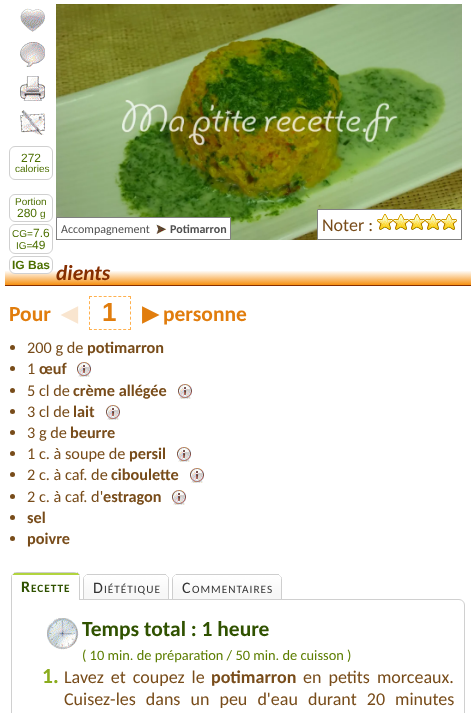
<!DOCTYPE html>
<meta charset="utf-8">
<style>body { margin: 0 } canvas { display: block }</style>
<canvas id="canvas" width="476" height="713"></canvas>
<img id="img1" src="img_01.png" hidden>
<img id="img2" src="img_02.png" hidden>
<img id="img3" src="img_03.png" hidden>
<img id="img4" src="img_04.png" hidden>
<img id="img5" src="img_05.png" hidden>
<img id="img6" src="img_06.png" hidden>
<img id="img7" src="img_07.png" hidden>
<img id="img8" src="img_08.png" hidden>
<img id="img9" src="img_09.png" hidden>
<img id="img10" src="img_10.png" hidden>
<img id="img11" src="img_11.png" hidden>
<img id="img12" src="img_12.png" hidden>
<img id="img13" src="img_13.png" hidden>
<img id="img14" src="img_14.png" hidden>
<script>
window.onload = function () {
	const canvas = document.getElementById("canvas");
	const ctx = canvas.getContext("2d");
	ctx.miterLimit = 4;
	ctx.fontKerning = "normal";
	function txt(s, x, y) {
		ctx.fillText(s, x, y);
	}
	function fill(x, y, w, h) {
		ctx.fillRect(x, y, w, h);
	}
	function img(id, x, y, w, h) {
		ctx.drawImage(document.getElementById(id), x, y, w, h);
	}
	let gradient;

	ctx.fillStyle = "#FFFFFF";
	fill(0, 0, 476, 713);
	img("img1", 20, 8, 25, 24);
	img("img2", 20, 42, 25, 25);
	img("img3", 20, 76, 25, 25);
	img("img4", 20, 110, 25, 25);
	ctx.beginPath();
	ctx.roundRect(9.5, 146.5, 43, 33, 5.5);
	ctx.strokeStyle = "#D0D0D0";
	ctx.stroke();
	ctx.beginPath();
	ctx.roundRect(9.5, 194.5, 43, 27, 5.5);
	ctx.stroke();
	ctx.beginPath();
	ctx.roundRect(9.5, 224.5, 43, 29, 5.5);
	ctx.stroke();
	img("img5", 56, 4, 406, 236);
	ctx.beginPath();
	ctx.rect(56.5, 217.5, 174, 22);
	ctx.fill();
	ctx.strokeStyle = "#808080";
	ctx.stroke();
	img("img6", 156, 224, 11, 10);
	ctx.beginPath();
	ctx.rect(317.5, 209.5, 144, 30);
	ctx.fill();
	ctx.stroke();
	img("img7", 377, 214, 16, 16);
	img("img7", 393, 214, 16, 16);
	img("img7", 409, 214, 16, 16);
	img("img7", 425, 214, 16, 16);
	img("img7", 441, 214, 16, 16);
	gradient = ctx.createLinearGradient(238, 256, 238, 285);
	gradient.addColorStop(0, "#FFFFFF");
	gradient.addColorStop(0.5, "#FFFFFF");
	gradient.addColorStop(1, "#F69010");
	ctx.fillStyle = gradient;
	fill(5, 271, 466, 14);
	ctx.fillStyle = "#FFFFFF";
	ctx.beginPath();
	ctx.roundRect(9.5, 256.5, 43, 17, 5.5);
	ctx.fill();
	ctx.strokeStyle = "#D0D0D0";
	ctx.stroke();
	ctx.fillStyle = "#852E00";
	fill(5, 285, 466, 1);
	ctx.beginPath();
	ctx.moveTo(89, 296.5);
	ctx.lineTo(131, 296.5);
	ctx.strokeStyle = "#FFB04E";
	ctx.setLineDash([3, 1.88]);
	ctx.stroke();
	ctx.beginPath();
	ctx.moveTo(130.5, 296);
	ctx.lineTo(130.5, 330);
	ctx.setLineDash([3, 2.17]);
	ctx.stroke();
	ctx.beginPath();
	ctx.moveTo(89, 329.5);
	ctx.lineTo(131, 329.5);
	ctx.setLineDash([3, 1.88]);
	ctx.stroke();
	ctx.beginPath();
	ctx.moveTo(89.5, 296);
	ctx.lineTo(89.5, 330);
	ctx.setLineDash([3, 2.17]);
	ctx.stroke();
	ctx.fillStyle = "#784C1A";
	ctx.beginPath();
	ctx.arc(12.5, 347.5, 2.5, 0, Math.PI * 2);
	ctx.fill();
	ctx.beginPath();
	ctx.arc(12.5, 368.5, 2.5, 0, Math.PI * 2);
	ctx.fill();
	img("img8", 77, 362, 14, 15);
	ctx.beginPath();
	ctx.arc(12.5, 390.5, 2.5, 0, Math.PI * 2);
	ctx.fill();
	img("img8", 178, 384, 14, 15);
	ctx.beginPath();
	ctx.arc(12.5, 411.5, 2.5, 0, Math.PI * 2);
	ctx.fill();
	img("img8", 106, 405, 14, 15);
	ctx.beginPath();
	ctx.arc(12.5, 432.5, 2.5, 0, Math.PI * 2);
	ctx.fill();
	ctx.beginPath();
	ctx.arc(12.5, 453.5, 2.5, 0, Math.PI * 2);
	ctx.fill();
	img("img8", 177, 447, 14, 15);
	ctx.beginPath();
	ctx.arc(12.5, 474.5, 2.5, 0, Math.PI * 2);
	ctx.fill();
	img("img8", 190, 468, 14, 15);
	ctx.beginPath();
	ctx.arc(12.5, 496.5, 2.5, 0, Math.PI * 2);
	ctx.fill();
	img("img8", 172, 490, 14, 15);
	ctx.beginPath();
	ctx.arc(12.5, 517.5, 2.5, 0, Math.PI * 2);
	ctx.fill();
	ctx.beginPath();
	ctx.arc(12.5, 538.5, 2.5, 0, Math.PI * 2);
	ctx.fill();
	ctx.beginPath();
	ctx.moveTo(11.5, 599.5);
	ctx.lineTo(459, 599.5);
	ctx.bezierCurveTo(462, 599.5, 464.5, 602, 464.5, 605);
	ctx.lineTo(464.5, 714);
	ctx.bezierCurveTo(464.5, 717, 462, 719.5, 459, 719.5);
	ctx.lineTo(17, 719.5);
	ctx.bezierCurveTo(14, 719.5, 11.5, 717, 11.5, 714);
	ctx.closePath();
	ctx.strokeStyle = "#D0D0D0";
	ctx.setLineDash([]);
	ctx.stroke();
	img("img9", 11, 572, 22, 28);
	img("img10", 33, 572, 47, 28);
	img("img11", 83, 574, 22, 25);
	img("img12", 105, 574, 64, 25);
	img("img11", 172, 574, 22, 25);
	img("img13", 194, 574, 88, 25);
	img("img14", 47, 618, 32, 32);
	ctx.font = "12px Liberation Sans";
	ctx.fillStyle = "#4C6F00";
	txt("272", 21, 162);
	ctx.font = "10px Liberation Sans";
	txt("calories", 15, 172);
	txt("Portion", 15, 205);
	ctx.font = "12px Liberation Sans";
	txt("280", 17, 217);
	ctx.font = "10px Liberation Sans";
	txt("g", 40, 217);
	txt("CG=", 12, 237);
	ctx.font = "12px Liberation Sans";
	txt("7.6", 33, 237);
	ctx.font = "10px Liberation Sans";
	txt("IG=", 16, 249);
	ctx.font = "12px Liberation Sans";
	txt("49", 32, 249);
	ctx.font = "12px Carlito";
	ctx.fillStyle = "#515151";
	txt("Accompagnement", 61, 233);
	ctx.font = "bold 12px Carlito";
	txt("Potimarron", 170, 233);
	ctx.font = "18px Carlito";
	ctx.fillStyle = "#784C1A";
	txt("Noter :", 322, 231);
	ctx.font = "bold 12px Liberation Sans";
	ctx.fillStyle = "#4C6F00";
	txt("IG Bas", 12, 269);
	ctx.font = "italic bold 21.5px Carlito";
	ctx.fillStyle = "#852E00";
	txt("dients", 56, 280);
	ctx.font = "bold 21.5px Carlito";
	ctx.fillStyle = "#E17D0D";
	txt("Pour", 9, 321);
	ctx.font = "bold 21.5px DejaVu Sans";
	ctx.fillStyle = "#F9E5CF";
	txt("◀", 61, 321);
	ctx.font = "bold 26px Liberation Sans";
	ctx.fillStyle = "#E17D0D";
	txt("1", 102, 321);
	ctx.font = "bold 21.5px DejaVu Sans";
	txt("▶", 142, 321);
	ctx.font = "bold 21.5px Carlito";
	txt("personne", 163, 321);
	ctx.font = "16.25px Carlito";
	ctx.fillStyle = "#784C1A";
	txt("200 g de", 27, 353);
	ctx.font = "bold 16.25px Carlito";
	txt("potimarron", 87, 353);
	ctx.font = "16.25px Carlito";
	txt("1", 27, 374);
	ctx.font = "bold 16.25px Carlito";
	txt("œuf", 39, 374);
	ctx.font = "16.25px Carlito";
	txt("5 cl de", 27, 396);
	ctx.font = "bold 16.25px Carlito";
	txt("crème allégée", 73, 396);
	ctx.font = "16.25px Carlito";
	txt("3 cl de", 27, 417);
	ctx.font = "bold 16.25px Carlito";
	txt("lait", 73, 417);
	ctx.font = "16.25px Carlito";
	txt("3 g de", 27, 438);
	ctx.font = "bold 16.25px Carlito";
	txt("beurre", 70, 438);
	ctx.font = "16.25px Carlito";
	txt("1 c. à soupe de", 27, 459);
	ctx.font = "bold 16.25px Carlito";
	txt("persil", 129, 459);
	ctx.font = "16.25px Carlito";
	txt("2 c. à caf. de", 27, 480);
	ctx.font = "bold 16.25px Carlito";
	txt("ciboulette", 111, 480);
	ctx.font = "16.25px Carlito";
	txt("2 c. à caf. d'", 27, 502);
	ctx.font = "bold 16.25px Carlito";
	txt("estragon", 103, 502);
	txt("sel", 27, 523);
	txt("poivre", 27, 544);
	ctx.letterSpacing = "1px";
	ctx.font = "bold 16px Carlito";
	ctx.fillStyle = "#305200";
	txt("R", 21, 592);
	ctx.font = "bold 11.25px Carlito";
	txt("ECETTE", 31, 592);
	ctx.font = "16px Carlito";
	ctx.fillStyle = "#333333";
	txt("D", 93, 593);
	ctx.font = "11.25px Carlito";
	txt("IÉTÉTIQUE", 104, 593);
	ctx.font = "16px Carlito";
	txt("C", 182, 593);
	ctx.font = "11.25px Carlito";
	txt("OMMENTAIRES", 192, 593);
	ctx.letterSpacing = "0px";
	ctx.font = "bold 21.5px Carlito";
	ctx.fillStyle = "#305200";
	txt("Temps total : 1 heure", 82, 636);
	ctx.font = "14.4px Carlito";
	ctx.fillStyle = "#5C7D00";
	txt("( 10 min. de préparation / 50 min. de cuisson )", 82, 660);
	ctx.font = "bold 21.5px Carlito";
	ctx.fillStyle = "#8BAC1E";
	txt("1.", 42, 683);
	ctx.wordSpacing = "3px";
	ctx.font = "18px Carlito";
	ctx.fillStyle = "#784C1A";
	txt("Lavez et coupez le", 64, 683);
	ctx.wordSpacing = "0px";
	ctx.font = "bold 18px Carlito";
	txt("potimarron", 211, 683);
	ctx.wordSpacing = "3px";
	ctx.font = "18px Carlito";
	txt("en petits morceaux.", 303, 683);
	ctx.wordSpacing = "6px";
	txt("Cuisez-les dans un peu d'eau durant 20 minutes", 64, 705);
};
</script>
